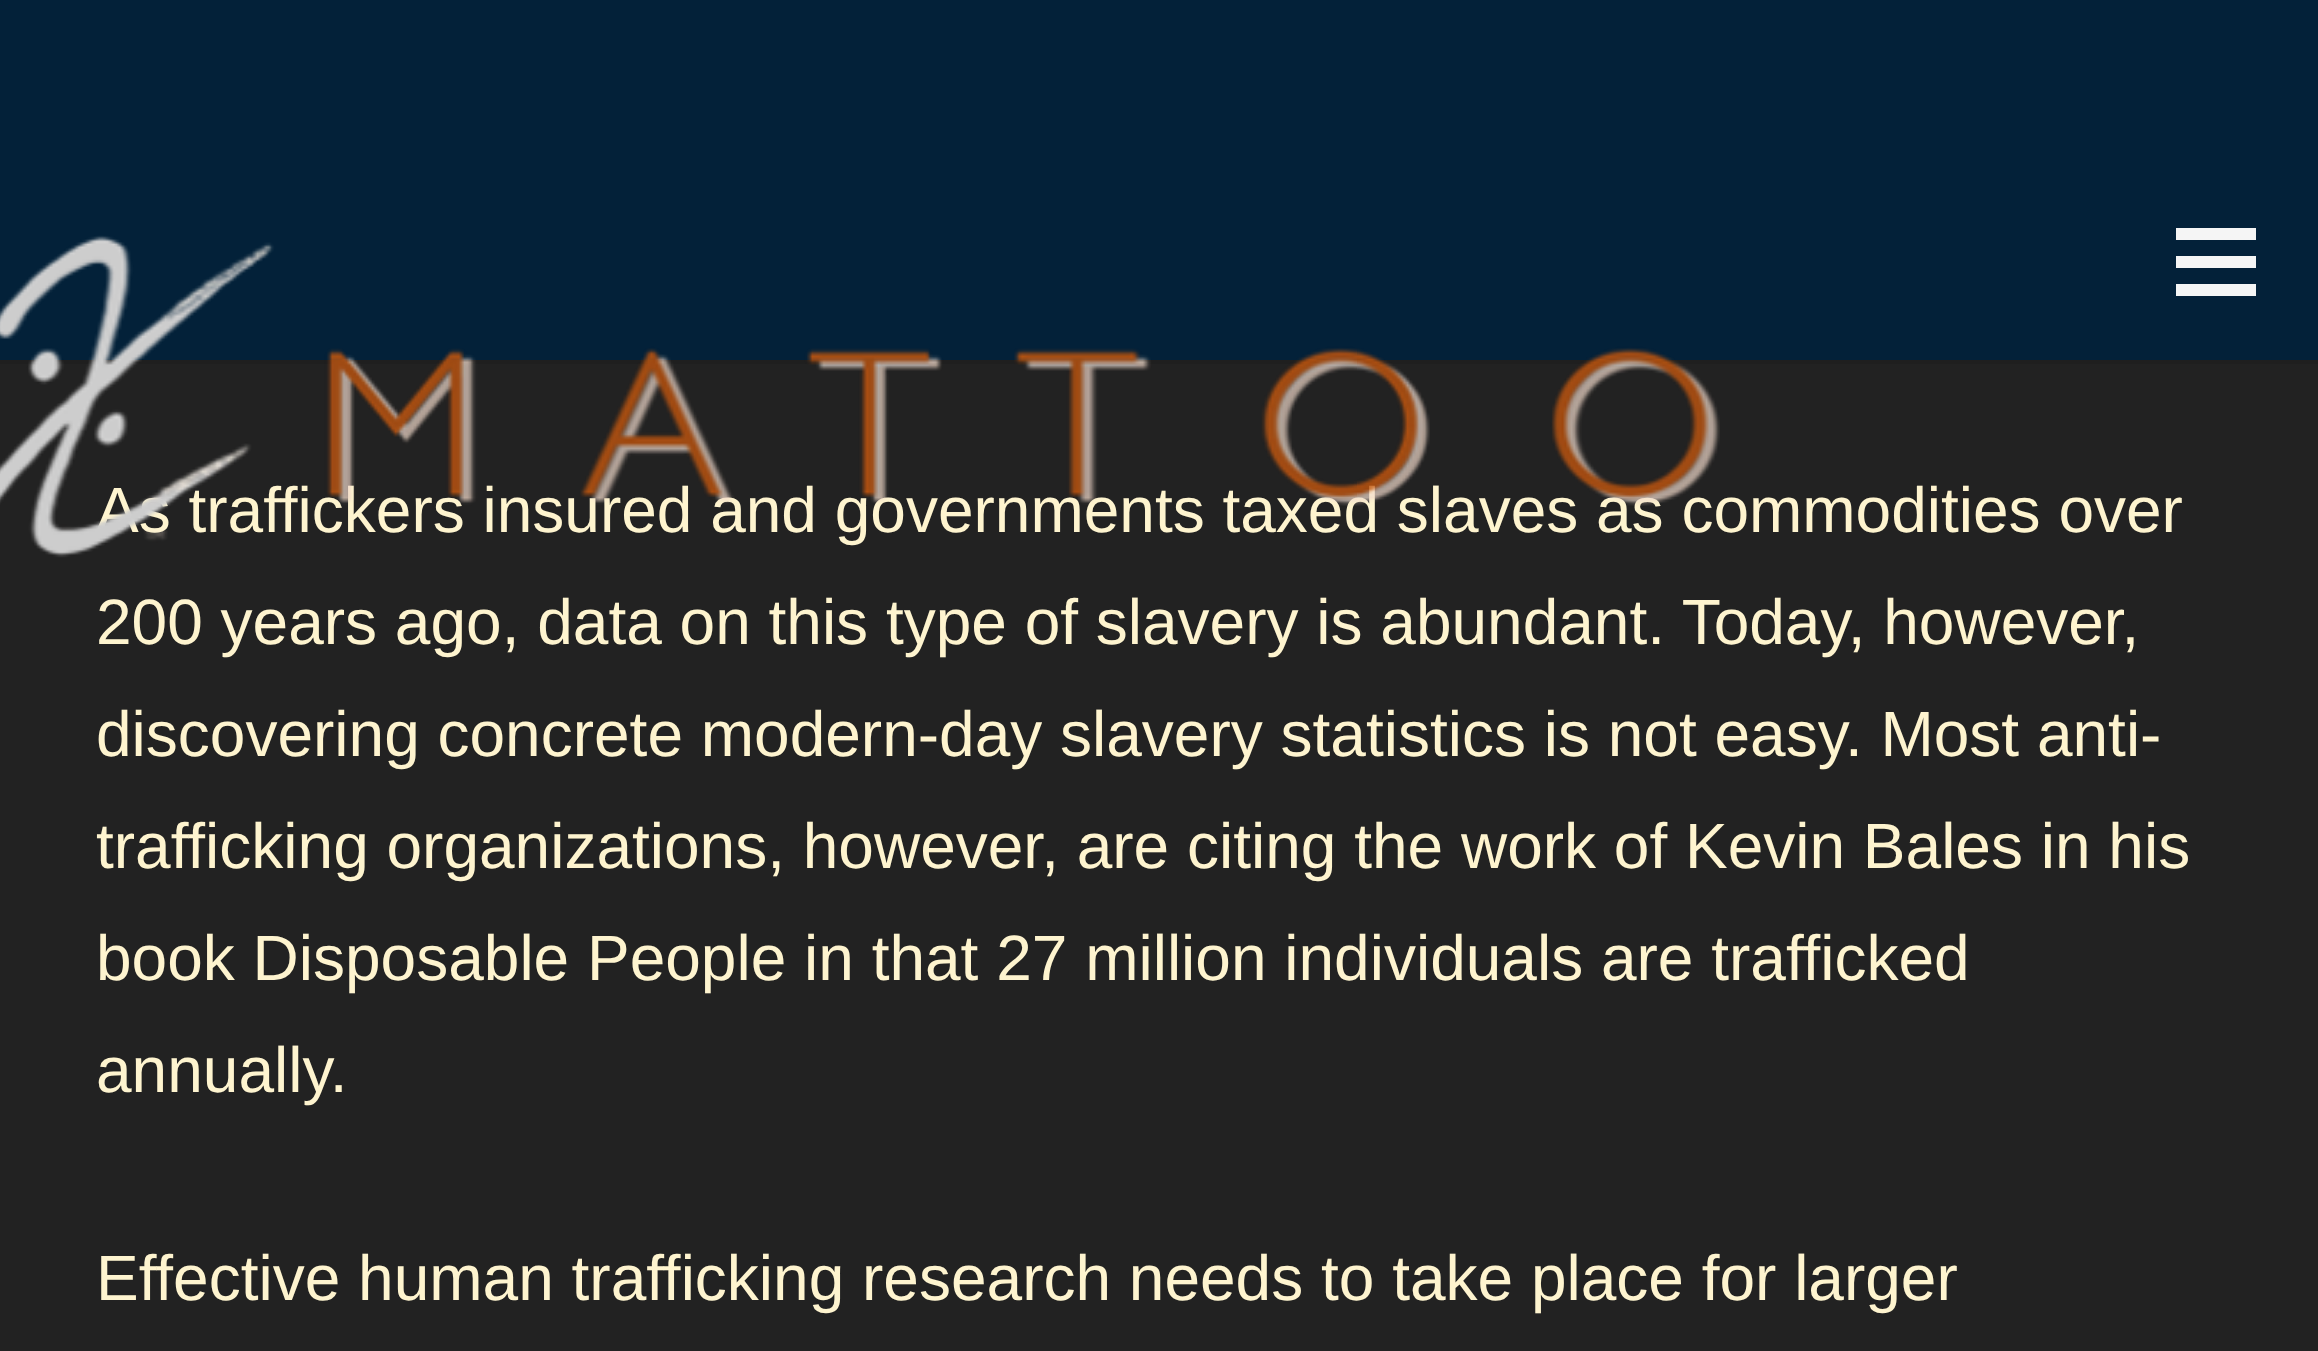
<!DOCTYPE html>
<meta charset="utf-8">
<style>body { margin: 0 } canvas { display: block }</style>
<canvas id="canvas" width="2318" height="1351"></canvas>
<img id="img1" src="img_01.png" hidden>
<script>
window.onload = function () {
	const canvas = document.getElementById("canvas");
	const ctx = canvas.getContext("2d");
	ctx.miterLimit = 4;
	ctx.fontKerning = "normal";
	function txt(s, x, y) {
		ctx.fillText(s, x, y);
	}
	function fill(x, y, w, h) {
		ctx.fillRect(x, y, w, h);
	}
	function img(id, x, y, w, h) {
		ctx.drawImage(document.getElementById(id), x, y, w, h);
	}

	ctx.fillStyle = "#222222";
	fill(0, 0, 2318, 1351);
	ctx.fillStyle = "#032139";
	fill(0, 0, 2318, 360);
	ctx.fillStyle = "#1F1F1F";
	fill(0, 360, 2318, 4);
	ctx.fillStyle = "#F5F5F5";
	fill(2176, 256, 80, 12);
	fill(2176, 228, 80, 12);
	fill(2176, 284, 80, 12);
	ctx.font = "64px Liberation Sans";
	ctx.fillStyle = "#FEF4CF";
	txt("As traffickers insured and governments taxed slaves as commodities over", 96, 532);
	img("img1", 0, 235, 1720, 323);
	txt("200 years ago, data on this type of slavery is abundant. Today, however,", 96, 644);
	txt("discovering concrete modern-day slavery statistics is not easy. Most anti-", 96, 756);
	txt("trafficking organizations, however, are citing the work of Kevin Bales in his", 96, 868);
	txt("book Disposable People in that 27 million individuals are trafficked", 96, 980);
	txt("annually.", 96, 1092);
	txt("Effective human trafficking research needs to take place for larger", 96, 1300);
};
</script>
